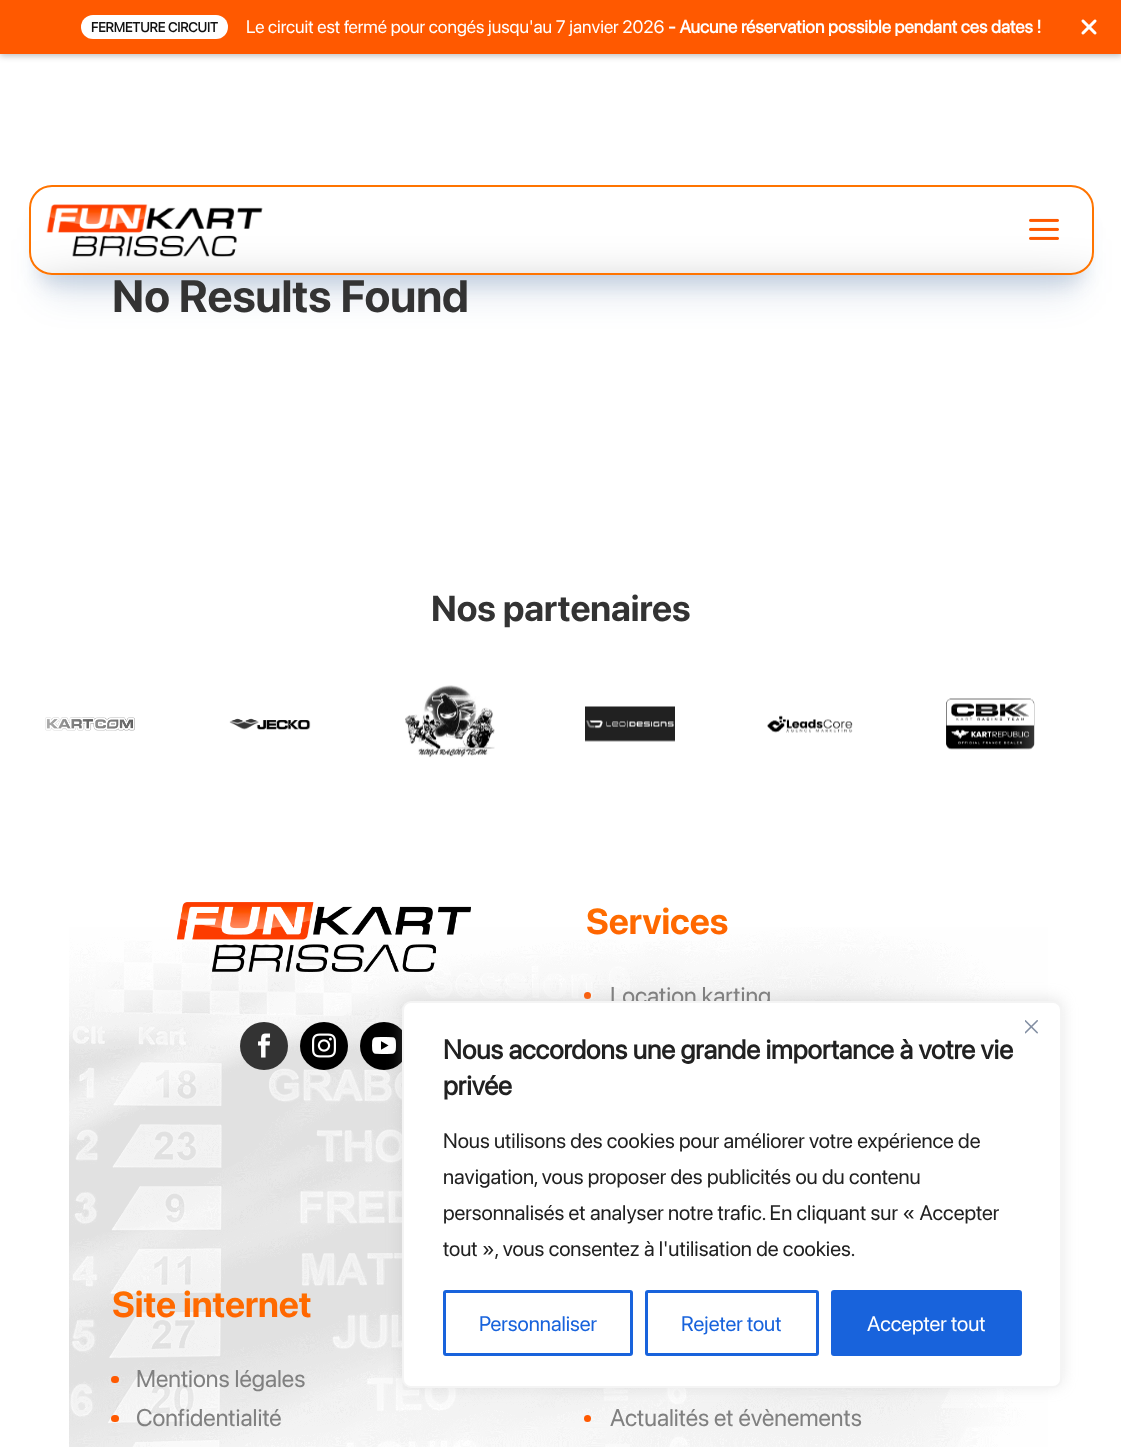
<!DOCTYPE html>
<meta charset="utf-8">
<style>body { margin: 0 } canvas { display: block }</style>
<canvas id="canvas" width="1121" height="1447"></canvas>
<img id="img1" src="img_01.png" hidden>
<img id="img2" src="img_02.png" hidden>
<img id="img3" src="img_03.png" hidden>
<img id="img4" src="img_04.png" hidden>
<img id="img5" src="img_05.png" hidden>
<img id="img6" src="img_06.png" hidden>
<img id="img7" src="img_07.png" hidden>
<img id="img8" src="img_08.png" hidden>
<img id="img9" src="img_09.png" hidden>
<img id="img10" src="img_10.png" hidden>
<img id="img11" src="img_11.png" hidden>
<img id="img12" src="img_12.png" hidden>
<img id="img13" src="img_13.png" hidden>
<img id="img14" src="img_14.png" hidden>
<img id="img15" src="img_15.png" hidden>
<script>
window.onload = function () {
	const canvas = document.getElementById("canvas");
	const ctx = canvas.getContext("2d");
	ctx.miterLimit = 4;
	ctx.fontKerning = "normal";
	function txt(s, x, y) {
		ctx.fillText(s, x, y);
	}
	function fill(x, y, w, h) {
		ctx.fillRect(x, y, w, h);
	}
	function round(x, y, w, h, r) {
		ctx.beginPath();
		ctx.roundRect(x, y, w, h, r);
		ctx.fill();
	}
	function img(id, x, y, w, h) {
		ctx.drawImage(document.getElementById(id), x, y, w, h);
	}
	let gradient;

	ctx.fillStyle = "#FFFFFF";
	fill(0, 0, 1121, 1447);
	ctx.fillStyle = "rgba(0, 0, 0, 0.25)";
	ctx.filter = "blur(3px)";
	ctx.beginPath();
	ctx.rect(0, 2, 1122, 54);
	ctx.fill();
	ctx.filter = "none";
	ctx.fillStyle = "#FF5900";
	fill(0, 0, 1121, 54);
	ctx.fillStyle = "#FFFFFF";
	round(81, 15, 147, 24, 12);
	img("img1", 1081, 19, 16, 16);
	ctx.save();
	ctx.beginPath();
	ctx.moveTo(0, 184);
	ctx.lineTo(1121, 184);
	ctx.lineTo(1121, 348);
	ctx.lineTo(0, 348);
	ctx.closePath();
	ctx.moveTo(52, 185);
	ctx.lineTo(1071, 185);
	ctx.bezierCurveTo(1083.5, 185, 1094, 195.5, 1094, 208);
	ctx.lineTo(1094, 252);
	ctx.bezierCurveTo(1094, 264.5, 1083.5, 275, 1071, 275);
	ctx.lineTo(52, 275);
	ctx.bezierCurveTo(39.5, 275, 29, 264.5, 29, 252);
	ctx.lineTo(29, 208);
	ctx.bezierCurveTo(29, 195.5, 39.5, 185, 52, 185);
	ctx.closePath();
	ctx.clip("evenodd");
	ctx.fillStyle = "rgba(14, 63, 126, 0.14)";
	ctx.filter = "blur(18px)";
	ctx.beginPath();
	ctx.roundRect(47, 239, 1029, 54, 5);
	ctx.fill();
	ctx.filter = "none";
	ctx.restore();
	ctx.save();
	ctx.beginPath();
	ctx.moveTo(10, 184);
	ctx.lineTo(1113, 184);
	ctx.lineTo(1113, 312);
	ctx.lineTo(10, 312);
	ctx.closePath();
	ctx.moveTo(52, 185);
	ctx.lineTo(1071, 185);
	ctx.bezierCurveTo(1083.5, 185, 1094, 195.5, 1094, 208);
	ctx.lineTo(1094, 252);
	ctx.bezierCurveTo(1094, 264.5, 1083.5, 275, 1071, 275);
	ctx.lineTo(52, 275);
	ctx.bezierCurveTo(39.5, 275, 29, 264.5, 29, 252);
	ctx.lineTo(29, 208);
	ctx.bezierCurveTo(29, 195.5, 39.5, 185, 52, 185);
	ctx.closePath();
	ctx.clip("evenodd");
	ctx.fillStyle = "rgba(14, 63, 126, 0.14)";
	ctx.filter = "blur(9px)";
	ctx.beginPath();
	ctx.roundRect(38, 212, 1047, 72, 14);
	ctx.fill();
	ctx.filter = "none";
	ctx.restore();
	ctx.beginPath();
	ctx.roundRect(30, 186, 1063, 88, 22);
	ctx.strokeStyle = "#FF7400";
	ctx.lineWidth = 2;
	ctx.stroke();
	img("img2", 46, 204, 217, 53);
	img("img3", 1029, 218, 30, 22);
	img("img4", 45, 717, 90, 14);
	img("img5", 229, 718, 82, 12);
	img("img6", 405, 685, 90, 73);
	img("img7", 585, 706, 90, 36);
	img("img8", 767, 715, 86, 18);
	img("img9", 946, 698, 89, 52);
	gradient = ctx.createLinearGradient(0, 725, 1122, 725);
	gradient.addColorStop(0, "#FFFFFF");
	gradient.addColorStop(0.13, "rgba(255, 255, 255, 0)");
	gradient.addColorStop(0.9, "rgba(255, 255, 255, 0)");
	gradient.addColorStop(1, "#FFFFFF");
	ctx.fillStyle = gradient;
	fill(45, 698, 990, 52);
	img("img10", 69, 927, 979, 520);
	img("img11", 177, 902, 294, 70);
	ctx.fillStyle = "#333333";
	ctx.beginPath();
	ctx.arc(264, 1046, 24, 0, Math.PI * 2);
	ctx.fill();
	img("img12", 258, 1033, 13, 25);
	ctx.fillStyle = "#000000";
	ctx.beginPath();
	ctx.arc(324, 1046, 24, 0, Math.PI * 2);
	ctx.fill();
	img("img13", 312, 1033, 24, 25);
	ctx.beginPath();
	ctx.arc(384, 1046, 24, 0, Math.PI * 2);
	ctx.fill();
	img("img14", 372, 1037, 24, 17);
	ctx.fillStyle = "#FF5900";
	ctx.beginPath();
	ctx.arc(587.5, 995.5, 3.5, 0, Math.PI * 2);
	ctx.fill();
	ctx.save();
	ctx.beginPath();
	ctx.roundRect(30, 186, 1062, 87, 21);
	ctx.clip();
	ctx.fillStyle = "rgba(0, 0, 0, 0.75)";
	ctx.filter = "blur(33px)";
	ctx.beginPath();
	ctx.roundRect(30, 314, 1079, 745, 23);
	ctx.fill();
	ctx.filter = "none";
	ctx.restore();
	round(111, 1376, 8, 7, 3.5);
	round(111, 1415, 8, 7, 3.5);
	ctx.beginPath();
	ctx.arc(587.5, 1418.5, 3.5, 0, Math.PI * 2);
	ctx.fill();
	ctx.fillStyle = "rgba(172, 171, 171, 0.3)";
	ctx.filter = "blur(7.5px)";
	ctx.beginPath();
	ctx.roundRect(402, 999, 660, 387, 9);
	ctx.fill();
	ctx.filter = "none";
	ctx.font = "bold 13.5px 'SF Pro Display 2'";
	ctx.fillStyle = "#111111";
	txt("FERMETURE CIRCUIT", 91, 32);
	ctx.font = "18px SF Pro Display";
	ctx.fillStyle = "#FFFFFF";
	txt("Le circuit est fermé pour congés jusqu'au 7 janvier 2026", 246, 33);
	ctx.font = "bold 18px 'SF Pro Display 2'";
	txt("- Aucune réservation possible pendant ces dates !", 668, 33);
	ctx.font = "bold 45px SF Pro Display";
	ctx.fillStyle = "#333333";
	txt("No Results Found", 112, 312);
	ctx.font = "bold 36px SF Pro Display";
	txt("Nos partenaires", 431, 621);
	gradient = ctx.createLinearGradient(657, 896, 657, 962);
	gradient.addColorStop(0, "#FF7400");
	gradient.addColorStop(1, "#FF5900");
	ctx.fillStyle = gradient;
	txt("Services", 586, 934);
	ctx.font = "24px SF Pro Display";
	ctx.fillStyle = "#808080";
	txt("Location karting", 610, 1004);
	ctx.font = "bold 36px SF Pro Display";
	gradient = ctx.createLinearGradient(212, 1280, 212, 1345);
	gradient.addColorStop(0, "#FF7400");
	gradient.addColorStop(1, "#FF5900");
	ctx.fillStyle = gradient;
	txt("Site internet", 112, 1317);
	ctx.font = "24px SF Pro Display";
	ctx.fillStyle = "#808080";
	txt("Mentions légales", 136, 1387);
	txt("Confidentialité", 136, 1426);
	txt("Actualités et évènements", 610, 1426);
	ctx.fillStyle = "#FFFFFF";
	ctx.beginPath();
	ctx.roundRect(403, 1002, 658, 385, 8);
	ctx.fill();
	ctx.strokeStyle = "#F4F4F4";
	ctx.stroke();
	img("img15", 1025, 1020, 13, 14);
	ctx.font = "bold 27px 'SF Pro Display 2'";
	ctx.fillStyle = "#212121";
	txt("Nous accordons une grande importance à votre vie", 443, 1059);
	txt("privée", 443, 1095);
	ctx.font = "21px SF Pro Display";
	txt("Nous utilisons des cookies pour améliorer votre expérience de", 443, 1148);
	txt("navigation, vous proposer des publicités ou du contenu", 443, 1184);
	txt("personnalisés et analyser notre trafic. En cliquant sur « Accepter", 443, 1220);
	txt("tout », vous consentez à l'utilisation de cookies.", 443, 1256);
	ctx.beginPath();
	ctx.roundRect(444.5, 1291.5, 187, 63, 1.5);
	ctx.strokeStyle = "#1863DC";
	ctx.lineWidth = 3;
	ctx.stroke();
	ctx.fillStyle = "#1863DC";
	txt("Personnaliser", 479, 1331);
	ctx.beginPath();
	ctx.roundRect(646.5, 1291.5, 171, 63, 1.5);
	ctx.stroke();
	txt("Rejeter tout", 681, 1331);
	ctx.beginPath();
	ctx.roundRect(832.5, 1291.5, 188, 63, 1.5);
	ctx.fill();
	ctx.stroke();
	ctx.fillStyle = "#FFFFFF";
	txt("Accepter tout", 867, 1331);
};
</script>
